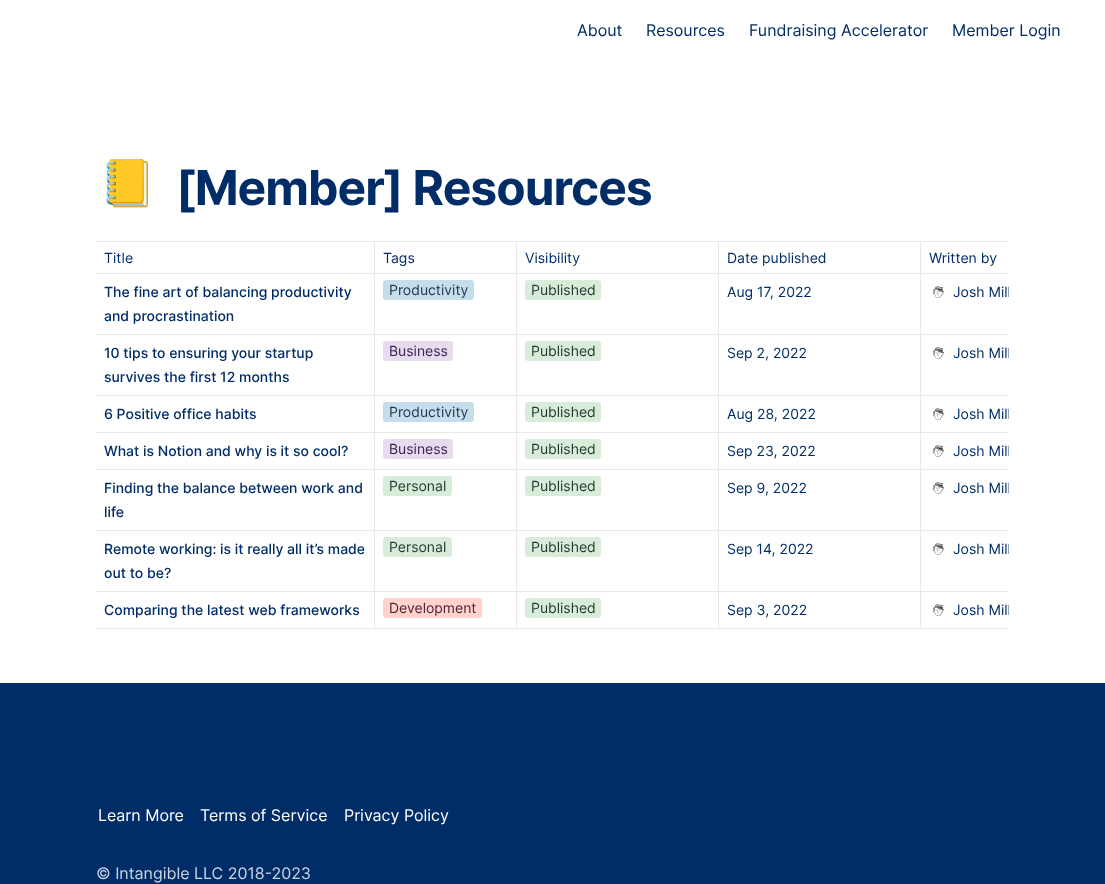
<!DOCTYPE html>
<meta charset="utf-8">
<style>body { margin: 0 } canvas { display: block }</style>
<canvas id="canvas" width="1105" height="884"></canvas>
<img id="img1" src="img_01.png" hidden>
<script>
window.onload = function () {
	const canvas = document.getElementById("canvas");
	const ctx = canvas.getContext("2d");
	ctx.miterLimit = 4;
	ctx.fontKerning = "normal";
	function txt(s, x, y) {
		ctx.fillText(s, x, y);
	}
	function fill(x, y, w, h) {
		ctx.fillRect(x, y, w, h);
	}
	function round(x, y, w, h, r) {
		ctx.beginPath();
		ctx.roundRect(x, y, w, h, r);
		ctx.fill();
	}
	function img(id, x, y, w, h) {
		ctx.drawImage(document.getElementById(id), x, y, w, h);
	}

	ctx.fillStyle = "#FFFFFF";
	fill(0, 0, 1105, 884);
	ctx.fillStyle = "#E9E9E7";
	fill(96, 241, 913, 1);
	fill(920, 273, 89, 1);
	fill(920, 334, 89, 1);
	fill(920, 395, 89, 1);
	fill(920, 432, 89, 1);
	fill(920, 469, 89, 1);
	fill(920, 530, 89, 1);
	fill(920, 591, 89, 1);
	fill(920, 628, 89, 1);
	fill(920, 591, 1, 38);
	fill(718, 591, 203, 1);
	fill(920, 530, 1, 62);
	fill(718, 530, 203, 1);
	fill(920, 469, 1, 62);
	fill(718, 469, 203, 1);
	fill(920, 432, 1, 38);
	fill(718, 432, 203, 1);
	fill(920, 395, 1, 38);
	fill(718, 395, 203, 1);
	fill(920, 334, 1, 62);
	fill(718, 334, 203, 1);
	fill(920, 273, 1, 62);
	fill(718, 273, 203, 1);
	fill(718, 628, 203, 1);
	fill(718, 591, 1, 38);
	fill(516, 591, 203, 1);
	fill(718, 530, 1, 62);
	fill(516, 530, 203, 1);
	fill(718, 469, 1, 62);
	fill(516, 469, 203, 1);
	fill(718, 432, 1, 38);
	fill(516, 432, 203, 1);
	fill(718, 395, 1, 38);
	fill(516, 395, 203, 1);
	fill(718, 334, 1, 62);
	fill(516, 334, 203, 1);
	fill(718, 273, 1, 62);
	fill(516, 273, 203, 1);
	fill(516, 628, 203, 1);
	fill(516, 591, 1, 38);
	fill(374, 591, 143, 1);
	fill(516, 530, 1, 62);
	fill(374, 530, 143, 1);
	fill(516, 469, 1, 62);
	fill(374, 469, 143, 1);
	fill(516, 432, 1, 38);
	fill(374, 432, 143, 1);
	fill(516, 395, 1, 38);
	fill(374, 395, 143, 1);
	fill(516, 334, 1, 62);
	fill(374, 334, 143, 1);
	fill(516, 273, 1, 62);
	fill(374, 273, 143, 1);
	fill(374, 628, 143, 1);
	fill(374, 591, 1, 38);
	fill(96, 591, 279, 1);
	fill(374, 530, 1, 62);
	fill(96, 530, 279, 1);
	fill(374, 469, 1, 62);
	fill(96, 469, 279, 1);
	fill(374, 432, 1, 38);
	fill(96, 432, 279, 1);
	fill(374, 395, 1, 38);
	fill(96, 395, 279, 1);
	fill(374, 334, 1, 62);
	fill(96, 334, 279, 1);
	fill(374, 273, 1, 62);
	fill(96, 273, 279, 1);
	fill(374, 241, 1, 33);
	fill(516, 241, 1, 33);
	fill(718, 241, 1, 33);
	fill(920, 241, 1, 33);
	ctx.fillStyle = "#C6DEEB";
	round(383, 280, 91, 20, 3);
	ctx.fillStyle = "#D9ECDA";
	round(525, 280, 76, 20, 3);
	img("img1", 932, 286, 12, 12);
	ctx.fillStyle = "#E7DCEF";
	round(383, 341, 70, 20, 3);
	ctx.fillStyle = "#D9ECDA";
	round(525, 341, 76, 20, 3);
	img("img1", 932, 347, 12, 12);
	ctx.fillStyle = "#C6DEEB";
	round(383, 402, 91, 20, 3);
	ctx.fillStyle = "#D9ECDA";
	round(525, 402, 76, 20, 3);
	img("img1", 932, 408, 12, 12);
	ctx.fillStyle = "#E7DCEF";
	round(383, 439, 70, 20, 3);
	ctx.fillStyle = "#D9ECDA";
	round(525, 439, 76, 20, 3);
	img("img1", 932, 445, 12, 12);
	round(383, 476, 69, 20, 3);
	round(525, 476, 76, 20, 3);
	img("img1", 932, 482, 12, 12);
	round(383, 537, 69, 20, 3);
	round(525, 537, 76, 20, 3);
	img("img1", 932, 543, 12, 12);
	ctx.fillStyle = "#E9E9E7";
	fill(96, 628, 279, 1);
	ctx.fillStyle = "#FFD3CC";
	round(383, 598, 99, 20, 3);
	ctx.fillStyle = "#D9ECDA";
	round(525, 598, 76, 20, 3);
	img("img1", 932, 604, 12, 12);
	ctx.fillStyle = "#002D67";
	fill(0, 683, 1105, 201);
	ctx.font = "16px Inter";
	txt("About", 577, 36);
	txt("Resources", 646, 36);
	txt("Fundraising Accelerator", 749, 36);
	txt("Member Login", 952, 36);
	ctx.font = "46px Noto Color Emoji";
	txt("📒", 99, 199);
	ctx.letterSpacing = "-1px";
	ctx.font = "bold 48px Inter";
	txt("[Member] Resources", 176, 205);
	ctx.letterSpacing = "0px";
	ctx.font = "14px Inter";
	txt("Title", 104, 263);
	txt("Tags", 383, 263);
	txt("Visibility", 525, 263);
	txt("Date published", 727, 263);
	txt("Written by", 929, 263);
	ctx.font = "500 14px Inter";
	txt("The fine art of balancing productivity", 104, 297);
	txt("and procrastination", 104, 321);
	ctx.font = "14px Inter";
	ctx.fillStyle = "#1C364F";
	txt("Productivity", 389, 295);
	ctx.fillStyle = "#1E392A";
	txt("Published", 531, 295);
	ctx.fillStyle = "#002D67";
	txt("Aug 17, 2022", 727, 297);
	ctx.save();
	ctx.beginPath();
	ctx.rect(929, 280, 80, 24);
	ctx.clip();
	txt("Josh Mill", 953, 297);
	ctx.restore();
	ctx.font = "500 14px Inter";
	txt("10 tips to ensuring your startup", 104, 358);
	txt("survives the first 12 months", 104, 382);
	ctx.font = "14px Inter";
	ctx.fillStyle = "#3F2253";
	txt("Business", 389, 356);
	ctx.fillStyle = "#1E392A";
	txt("Published", 531, 356);
	ctx.fillStyle = "#002D67";
	txt("Sep 2, 2022", 727, 358);
	ctx.save();
	ctx.beginPath();
	ctx.rect(929, 341, 80, 24);
	ctx.clip();
	txt("Josh Mill", 953, 358);
	ctx.restore();
	ctx.font = "500 14px Inter";
	txt("6 Positive office habits", 104, 419);
	ctx.font = "14px Inter";
	ctx.fillStyle = "#1C364F";
	txt("Productivity", 389, 417);
	ctx.fillStyle = "#1E392A";
	txt("Published", 531, 417);
	ctx.fillStyle = "#002D67";
	txt("Aug 28, 2022", 727, 419);
	ctx.save();
	ctx.beginPath();
	ctx.rect(929, 402, 80, 24);
	ctx.clip();
	txt("Josh Mill", 953, 419);
	ctx.restore();
	ctx.font = "500 14px Inter";
	txt("What is Notion and why is it so cool?", 104, 456);
	ctx.font = "14px Inter";
	ctx.fillStyle = "#3F2253";
	txt("Business", 389, 454);
	ctx.fillStyle = "#1E392A";
	txt("Published", 531, 454);
	ctx.fillStyle = "#002D67";
	txt("Sep 23, 2022", 727, 456);
	ctx.save();
	ctx.beginPath();
	ctx.rect(929, 439, 80, 24);
	ctx.clip();
	txt("Josh Mill", 953, 456);
	ctx.restore();
	ctx.font = "500 14px Inter";
	txt("Finding the balance between work and", 104, 493);
	txt("life", 104, 517);
	ctx.font = "14px Inter";
	ctx.fillStyle = "#1E392A";
	txt("Personal", 389, 491);
	txt("Published", 531, 491);
	ctx.fillStyle = "#002D67";
	txt("Sep 9, 2022", 727, 493);
	ctx.save();
	ctx.beginPath();
	ctx.rect(929, 476, 80, 24);
	ctx.clip();
	txt("Josh Mill", 953, 493);
	ctx.restore();
	ctx.font = "500 14px Inter";
	txt("Remote working: is it really all it’s made", 104, 554);
	txt("out to be?", 104, 578);
	ctx.font = "14px Inter";
	ctx.fillStyle = "#1E392A";
	txt("Personal", 389, 552);
	txt("Published", 531, 552);
	ctx.fillStyle = "#002D67";
	txt("Sep 14, 2022", 727, 554);
	ctx.save();
	ctx.beginPath();
	ctx.rect(929, 537, 80, 24);
	ctx.clip();
	txt("Josh Mill", 953, 554);
	ctx.restore();
	ctx.font = "500 14px Inter";
	txt("Comparing the latest web frameworks", 104, 615);
	ctx.font = "14px Inter";
	ctx.fillStyle = "#4B2537";
	txt("Development", 389, 613);
	ctx.fillStyle = "#1E392A";
	txt("Published", 531, 613);
	ctx.fillStyle = "#002D67";
	txt("Sep 3, 2022", 727, 615);
	ctx.save();
	ctx.beginPath();
	ctx.rect(929, 598, 80, 24);
	ctx.clip();
	txt("Josh Mill", 953, 615);
	ctx.restore();
	ctx.font = "16px Inter";
	ctx.fillStyle = "#FFFFFF";
	txt("Learn More", 98, 821);
	txt("Terms of Service", 200, 821);
	txt("Privacy Policy", 344, 821);
	ctx.fillStyle = "#CCD5E1";
	txt("© Intangible LLC 2018-2023", 96, 879);
};
</script>
